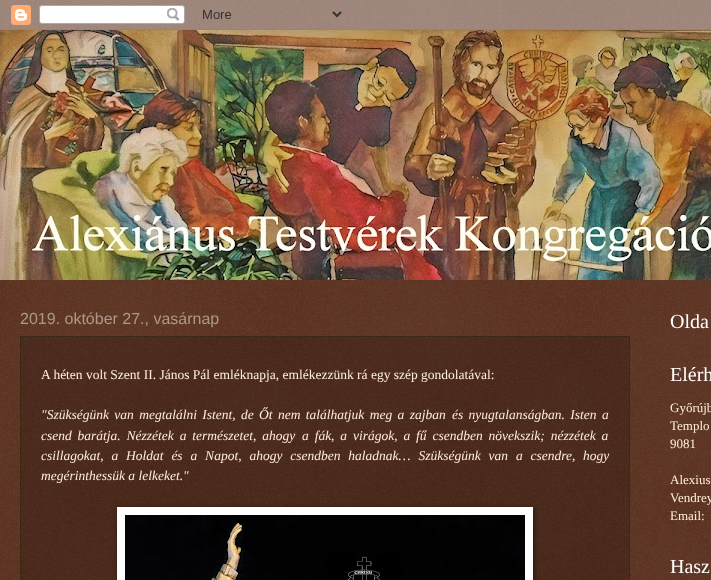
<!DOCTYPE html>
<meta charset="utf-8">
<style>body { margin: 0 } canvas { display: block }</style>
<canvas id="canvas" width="711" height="580"></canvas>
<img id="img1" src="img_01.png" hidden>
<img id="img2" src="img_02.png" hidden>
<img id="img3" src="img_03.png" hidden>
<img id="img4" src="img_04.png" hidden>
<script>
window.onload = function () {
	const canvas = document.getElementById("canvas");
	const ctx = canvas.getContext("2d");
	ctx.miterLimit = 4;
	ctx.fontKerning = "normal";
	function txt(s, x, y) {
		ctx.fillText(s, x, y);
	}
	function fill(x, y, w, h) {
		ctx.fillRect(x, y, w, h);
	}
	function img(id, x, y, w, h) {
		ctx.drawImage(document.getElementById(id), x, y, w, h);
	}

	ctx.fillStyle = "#441500";
	fill(0, 0, 711, 580);
	img("img1", 0, 0, 711, 580);
	img("img2", 0, 0, 711, 30);
	img("img3", 0, 30, 711, 250);
	ctx.fillStyle = "rgba(0, 0, 0, 0.2)";
	fill(20, 336, 610, 244);
	ctx.beginPath();
	ctx.moveTo(20, 336.5);
	ctx.lineTo(630, 336.5);
	ctx.strokeStyle = "#332211";
	ctx.setLineDash([1, 1]);
	ctx.stroke();
	ctx.beginPath();
	ctx.moveTo(629.5, 336);
	ctx.lineTo(629.5, 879);
	ctx.stroke();
	ctx.beginPath();
	ctx.moveTo(20.5, 336);
	ctx.lineTo(20.5, 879);
	ctx.stroke();
	ctx.fillStyle = "rgba(0, 0, 0, 0.5)";
	ctx.filter = "blur(2.5px)";
	ctx.beginPath();
	ctx.rect(118, 508, 416, 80);
	ctx.fill();
	ctx.filter = "none";
	ctx.fillStyle = "#FFFFFF";
	fill(117, 507, 416, 73);
	img("img4", 125, 515, 400, 65);
	ctx.font = "16px Liberation Sans";
	ctx.fillStyle = "#AA9988";
	txt("2019. október 27., vasárnap", 20, 324);
	ctx.font = "13.5px Liberation Serif";
	ctx.fillStyle = "#FFEEDD";
	txt("A héten volt Szent II. János Pál emléknapja, emlékezzünk rá egy szép gondolatával:", 41, 379);
	ctx.wordSpacing = "2px";
	ctx.font = "italic 13.5px Liberation Serif";
	txt("\"Szükségünk van megtalálni Istent, de Őt nem találhatjuk meg a zajban", 41, 419);
	txt("és nyugtalanságban. Isten a", 452, 419);
	ctx.wordSpacing = "2.5px";
	txt("csend barátja. Nézzétek a természetet, ahogy", 41, 440);
	txt("a fák, a virágok, a fű csendben növekszik; nézzétek a", 302, 440);
	ctx.wordSpacing = "4.5px";
	txt("csillagokat, a", 41, 460);
	txt("Holdat és a Napot, ahogy csendben haladnak… Szükségünk van a csendre,", 126, 460);
	ctx.wordSpacing = "0px";
	txt("hogy", 583, 460);
	txt("megérinthessük a lelkeket.\"", 41, 480);
	ctx.font = "20px Liberation Serif";
	ctx.fillStyle = "#FFFFFF";
	txt("Olda", 670, 328);
	txt("Elérh", 670, 381);
	ctx.font = "13px Liberation Serif";
	ctx.fillStyle = "#FFEEDD";
	txt("Győrújb", 670, 412);
	txt("Templo", 670, 430);
	txt("9081", 670, 448);
	txt("Alexius", 670, 484);
	txt("Vendrey", 670, 502);
	txt("Email:", 670, 520);
	ctx.font = "20px Liberation Serif";
	ctx.fillStyle = "#FFFFFF";
	txt("Hasz", 670, 573);
};
</script>
